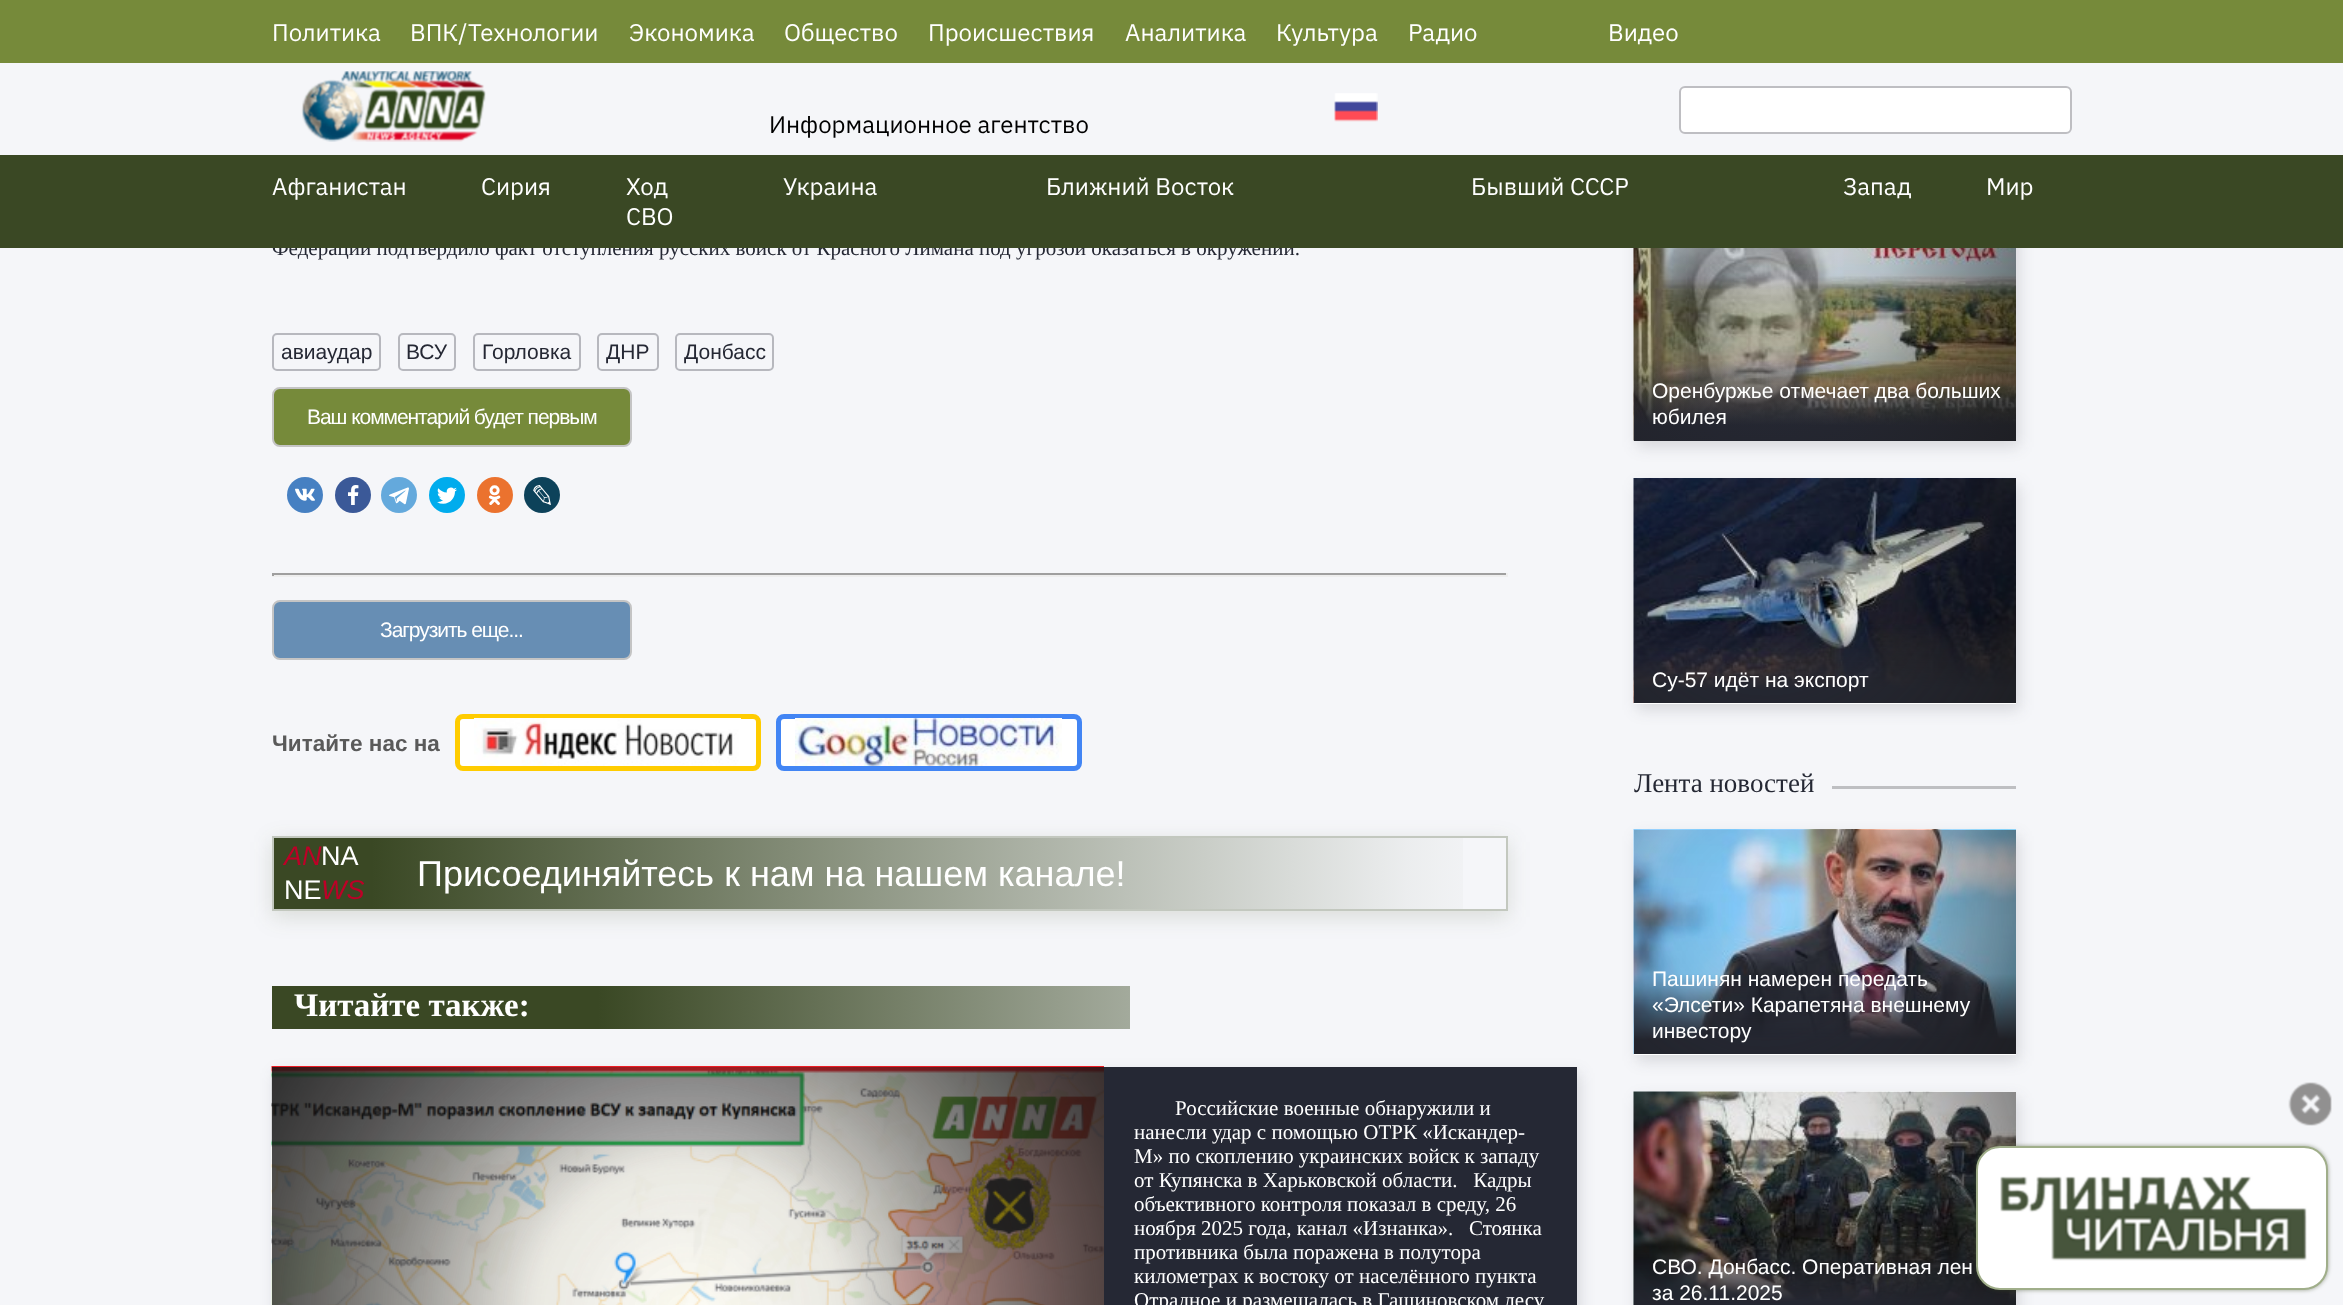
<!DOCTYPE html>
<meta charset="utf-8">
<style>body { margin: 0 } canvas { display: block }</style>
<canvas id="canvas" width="2343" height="1305"></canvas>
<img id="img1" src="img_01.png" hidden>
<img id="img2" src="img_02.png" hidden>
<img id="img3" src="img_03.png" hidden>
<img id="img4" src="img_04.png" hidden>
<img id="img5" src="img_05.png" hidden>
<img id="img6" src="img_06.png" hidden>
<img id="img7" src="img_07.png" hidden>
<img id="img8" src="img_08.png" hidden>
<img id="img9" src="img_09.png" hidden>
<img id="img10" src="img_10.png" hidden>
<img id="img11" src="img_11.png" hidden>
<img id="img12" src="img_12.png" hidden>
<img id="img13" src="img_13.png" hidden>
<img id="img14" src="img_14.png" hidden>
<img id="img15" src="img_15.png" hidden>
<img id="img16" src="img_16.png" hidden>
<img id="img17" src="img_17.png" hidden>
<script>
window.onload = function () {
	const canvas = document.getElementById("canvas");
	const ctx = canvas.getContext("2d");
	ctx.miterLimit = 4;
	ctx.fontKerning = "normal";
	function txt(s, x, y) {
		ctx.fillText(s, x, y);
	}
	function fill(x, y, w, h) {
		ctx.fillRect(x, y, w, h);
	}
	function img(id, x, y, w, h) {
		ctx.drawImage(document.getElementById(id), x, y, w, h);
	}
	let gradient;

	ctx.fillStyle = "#F5F6F9";
	fill(0, 0, 2343, 1305);
	ctx.fillStyle = "#768A3A";
	fill(0, 0, 2343, 63);
	img("img1", 301, 71, 185, 71);
	img("img2", 1334, 93, 44, 29);
	ctx.fillStyle = "#FFFFFF";
	ctx.beginPath();
	ctx.roundRect(1680, 87, 391, 46, 5);
	ctx.fill();
	ctx.strokeStyle = "#BEBEC2";
	ctx.lineWidth = 2;
	ctx.stroke();
	ctx.beginPath();
	ctx.roundRect(273, 334, 107, 36, 4);
	ctx.strokeStyle = "#B7B8BE";
	ctx.stroke();
	ctx.beginPath();
	ctx.roundRect(399, 334, 56, 36, 4);
	ctx.stroke();
	ctx.beginPath();
	ctx.roundRect(474, 334, 106, 36, 4);
	ctx.stroke();
	ctx.beginPath();
	ctx.roundRect(598, 334, 60, 36, 4);
	ctx.stroke();
	ctx.beginPath();
	ctx.roundRect(676, 334, 97, 36, 4);
	ctx.stroke();
	ctx.fillStyle = "#768A3A";
	ctx.beginPath();
	ctx.roundRect(273, 388, 358, 58, 7);
	ctx.fill();
	ctx.strokeStyle = "#C4C4C4";
	ctx.stroke();
	ctx.fillStyle = "#4680C2";
	ctx.beginPath();
	ctx.arc(305, 495, 18, 0, Math.PI * 2);
	ctx.fill();
	img("img3", 295, 488, 20, 13);
	ctx.fillStyle = "#3B5998";
	ctx.beginPath();
	ctx.arc(353, 495, 18, 0, Math.PI * 2);
	ctx.fill();
	img("img4", 348, 485, 11, 20);
	ctx.fillStyle = "#64A9DC";
	ctx.beginPath();
	ctx.arc(399, 495, 18, 0, Math.PI * 2);
	ctx.fill();
	img("img5", 389, 487, 20, 18);
	ctx.fillStyle = "#00ACED";
	ctx.beginPath();
	ctx.arc(447, 495, 18, 0, Math.PI * 2);
	ctx.fill();
	img("img6", 437, 487, 20, 17);
	ctx.fillStyle = "#EB722E";
	ctx.beginPath();
	ctx.arc(495, 495, 18, 0, Math.PI * 2);
	ctx.fill();
	img("img7", 488, 485, 13, 20);
	ctx.fillStyle = "#0D425A";
	ctx.beginPath();
	ctx.arc(542, 495, 18, 0, Math.PI * 2);
	ctx.fill();
	img("img8", 533, 485, 18, 20);
	ctx.fillStyle = "#9F9F9F";
	fill(272, 573, 1236, 2);
	ctx.fillStyle = "#EEEEEE";
	fill(1506, 573, 2, 3);
	fill(272, 575, 1236, 2);
	ctx.fillStyle = "#9F9F9F";
	fill(272, 573, 2, 3);
	ctx.fillStyle = "#678EB4";
	ctx.beginPath();
	ctx.roundRect(273, 601, 358, 58, 7);
	ctx.fill();
	ctx.stroke();
	ctx.fillStyle = "#FFFFFF";
	ctx.beginPath();
	ctx.roundRect(457.5, 716.5, 301, 52, 5.5);
	ctx.fill();
	ctx.strokeStyle = "#FFCC00";
	ctx.lineWidth = 5;
	ctx.stroke();
	img("img9", 474, 718, 267, 48);
	ctx.beginPath();
	ctx.roundRect(778.5, 716.5, 301, 52, 5.5);
	ctx.fill();
	ctx.strokeStyle = "#4285F4";
	ctx.stroke();
	img("img10", 795, 718, 267, 48);
	ctx.save();
	ctx.beginPath();
	ctx.moveTo(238, 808);
	ctx.lineTo(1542, 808);
	ctx.lineTo(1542, 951);
	ctx.lineTo(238, 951);
	ctx.closePath();
	ctx.moveTo(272, 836);
	ctx.lineTo(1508, 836);
	ctx.lineTo(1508, 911);
	ctx.lineTo(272, 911);
	ctx.closePath();
	ctx.clip("evenodd");
	ctx.fillStyle = "rgba(58, 72, 36, 0.15)";
	ctx.filter = "blur(11px)";
	ctx.beginPath();
	ctx.rect(272, 842, 1236, 75);
	ctx.fill();
	ctx.filter = "none";
	ctx.restore();
	gradient = ctx.createLinearGradient(273, 873, 1506, 873);
	gradient.addColorStop(0.08, "#3A4824");
	gradient.addColorStop(0.83, "rgba(58, 72, 36, 0.15)");
	gradient.addColorStop(0.92, "rgba(58, 72, 36, 0.05)");
	gradient.addColorStop(1, "rgba(58, 72, 36, 0)");
	ctx.fillStyle = gradient;
	fill(274, 838, 1189, 71);
	ctx.strokeStyle = "#C3C8BF";
	ctx.lineWidth = 2;
	ctx.strokeRect(273, 837, 1234, 73);
	gradient = ctx.createLinearGradient(272, 1007, 1130, 1007);
	gradient.addColorStop(0.38, "#3A4824");
	gradient.addColorStop(1, "#A3AA9C");
	ctx.fillStyle = gradient;
	fill(272, 986, 858, 43);
	ctx.fillStyle = "rgba(37, 40, 52, 0.15)";
	ctx.filter = "blur(7.5px)";
	ctx.beginPath();
	ctx.rect(275, 1073, 1305, 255);
	ctx.fill();
	ctx.filter = "none";
	img("img11", 271, 1066, 833, 239);
	ctx.fillStyle = "#252834";
	fill(1104, 1067, 473, 238);
	ctx.fillStyle = "rgba(37, 40, 52, 0.15)";
	ctx.filter = "blur(7.5px)";
	ctx.beginPath();
	ctx.rect(1637, 222, 382, 225);
	ctx.fill();
	ctx.filter = "none";
	img("img12", 1633, 248, 383, 193);
	gradient = ctx.createLinearGradient(1825, 441, 1825, 216);
	gradient.addColorStop(0.07, "#252834");
	gradient.addColorStop(0.36, "rgba(37, 40, 52, 0)");
	ctx.fillStyle = gradient;
	fill(1634, 361, 382, 80);
	gradient = ctx.createRadialGradient(1766, 297, 0, 1766, 297, 461);
	gradient.addColorStop(0, "rgba(33, 31, 31, 0)");
	gradient.addColorStop(0.26, "rgba(33, 31, 31, 0.12)");
	gradient.addColorStop(1, "#101010");
	ctx.fillStyle = gradient;
	fill(1634, 248, 382, 193);
	ctx.fillStyle = "rgba(37, 40, 52, 0.15)";
	ctx.filter = "blur(7.5px)";
	ctx.beginPath();
	ctx.rect(1637, 485, 382, 225);
	ctx.fill();
	ctx.filter = "none";
	ctx.fillStyle = "#FFFFFF";
	fill(1634, 703, 382, 1);
	img("img13", 1633, 478, 383, 225);
	ctx.fillStyle = "#BEBFC2";
	fill(1832, 786, 184, 3);
	ctx.fillStyle = "rgba(37, 40, 52, 0.15)";
	ctx.filter = "blur(7.5px)";
	ctx.beginPath();
	ctx.rect(1637, 836, 382, 225);
	ctx.fill();
	ctx.filter = "none";
	ctx.fillStyle = "#FFFFFF";
	fill(1634, 1054, 382, 1);
	img("img14", 1633, 829, 383, 225);
	ctx.fillStyle = "rgba(37, 40, 52, 0.15)";
	ctx.filter = "blur(7.5px)";
	ctx.beginPath();
	ctx.rect(1637, 1098, 382, 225);
	ctx.fill();
	ctx.filter = "none";
	img("img15", 1633, 1091, 383, 214);
	ctx.fillStyle = "rgba(58, 72, 36, 0.5)";
	ctx.filter = "blur(2px)";
	ctx.beginPath();
	ctx.roundRect(1976, 1146, 352, 144, 24);
	ctx.fill();
	ctx.filter = "none";
	ctx.fillStyle = "#FFFFFF";
	ctx.beginPath();
	ctx.roundRect(1977, 1147, 350, 142, 23);
	ctx.fill();
	ctx.strokeStyle = "#A0AE8A";
	ctx.stroke();
	img("img16", 2288, 1082, 44, 44);
	img("img17", 2000, 1176, 307, 85);
	ctx.font = "24px IBM Plex Sans";
	txt("Политика", 272, 41);
	txt("ВПК/Технологии", 410, 41);
	txt("Экономика", 629, 41);
	txt("Общество", 784, 41);
	txt("Происшествия", 928, 41);
	txt("Аналитика", 1125, 41);
	txt("Культура", 1276, 41);
	txt("Радио", 1408, 41);
	txt("Видео", 1608, 41);
	ctx.fillStyle = "#000000";
	txt("Информационное агентство", 769, 133);
	ctx.font = "21px Liberation Serif";
	ctx.fillStyle = "#252834";
	txt("Федерации подтвердило факт отступления русских войск от Красного Лимана под угрозой оказаться в окружении.", 272, 255);
	ctx.fillStyle = "#3A4824";
	fill(0, 155, 2343, 93);
	ctx.font = "24px IBM Plex Sans";
	ctx.fillStyle = "#FFFFFF";
	txt("Мир", 1986, 195);
	txt("Запад", 1843, 195);
	txt("Бывший СССР", 1471, 195);
	txt("Ближний Восток", 1046, 195);
	txt("Украина", 783, 195);
	txt("СВО", 626, 225);
	txt("Ход", 626, 195);
	txt("Сирия", 481, 195);
	txt("Афганистан", 272, 195);
	ctx.font = "21px Liberation Sans";
	ctx.fillStyle = "#252834";
	txt("авиаудар", 281, 359);
	txt("ВСУ", 406, 359);
	txt("Горловка", 482, 359);
	txt("ДНР", 606, 359);
	txt("Донбасс", 684, 359);
	ctx.letterSpacing = "-1.05px";
	ctx.fillStyle = "#FFFFFF";
	txt("Ваш комментарий будет первым", 307, 424);
	txt("Загрузить еще...", 380, 637);
	ctx.letterSpacing = "0px";
	ctx.font = "bold 22.5px Liberation Sans";
	ctx.fillStyle = "#5A5A5A";
	txt("Читайте нас на", 272, 751);
	ctx.font = "italic 27px Liberation Sans";
	ctx.fillStyle = "#BE0027";
	txt("AN", 284, 865);
	ctx.font = "27px Liberation Sans";
	ctx.fillStyle = "#FFFFFF";
	txt("NA", 321, 865);
	txt("NE", 284, 899);
	ctx.font = "italic 27px Liberation Sans";
	ctx.fillStyle = "#BE0027";
	txt("WS", 321, 899);
	ctx.font = "36px Liberation Sans";
	ctx.fillStyle = "#FFFFFF";
	txt("Присоединяйтесь к нам на нашем канале!", 417, 886);
	ctx.font = "bold 33px Liberation Serif";
	txt("Читайте также:", 294, 1016);
	ctx.font = "21px Liberation Serif";
	txt("Российские военные обнаружили и", 1175, 1115);
	txt("нанесли удар с помощью ОТРК «Искандер-", 1134, 1139);
	txt("М» по скоплению украинских войск к западу", 1134, 1163);
	txt("от Купянска в Харьковской области.   Кадры", 1134, 1187);
	txt("объективного контроля показал в среду, 26", 1134, 1211);
	txt("ноября 2025 года, канал «Изнанка».   Стоянка", 1134, 1235);
	txt("противника была поражена в полутора", 1134, 1259);
	txt("километрах к востоку от населённого пункта", 1134, 1283);
	txt("Отрадное и размещалась в Гашиновском лесу", 1134, 1307);
	ctx.font = "21px Liberation Sans";
	txt("Оренбуржье отмечает два больших", 1652, 398);
	txt("юбилея", 1652, 424);
	txt("Су-57 идёт на экспорт", 1652, 687);
	ctx.font = "27px Liberation Serif";
	ctx.fillStyle = "#252834";
	txt("Лента новостей", 1634, 792);
	ctx.font = "21px Liberation Sans";
	ctx.fillStyle = "#FFFFFF";
	txt("Пашинян намерен передать", 1652, 986);
	txt("«Элсети» Карапетяна внешнему", 1652, 1012);
	txt("инвестору", 1652, 1038);
	txt("СВО. Донбасс. Оперативная лен", 1652, 1274);
	txt("за 26.11.2025", 1652, 1300);
};
</script>
